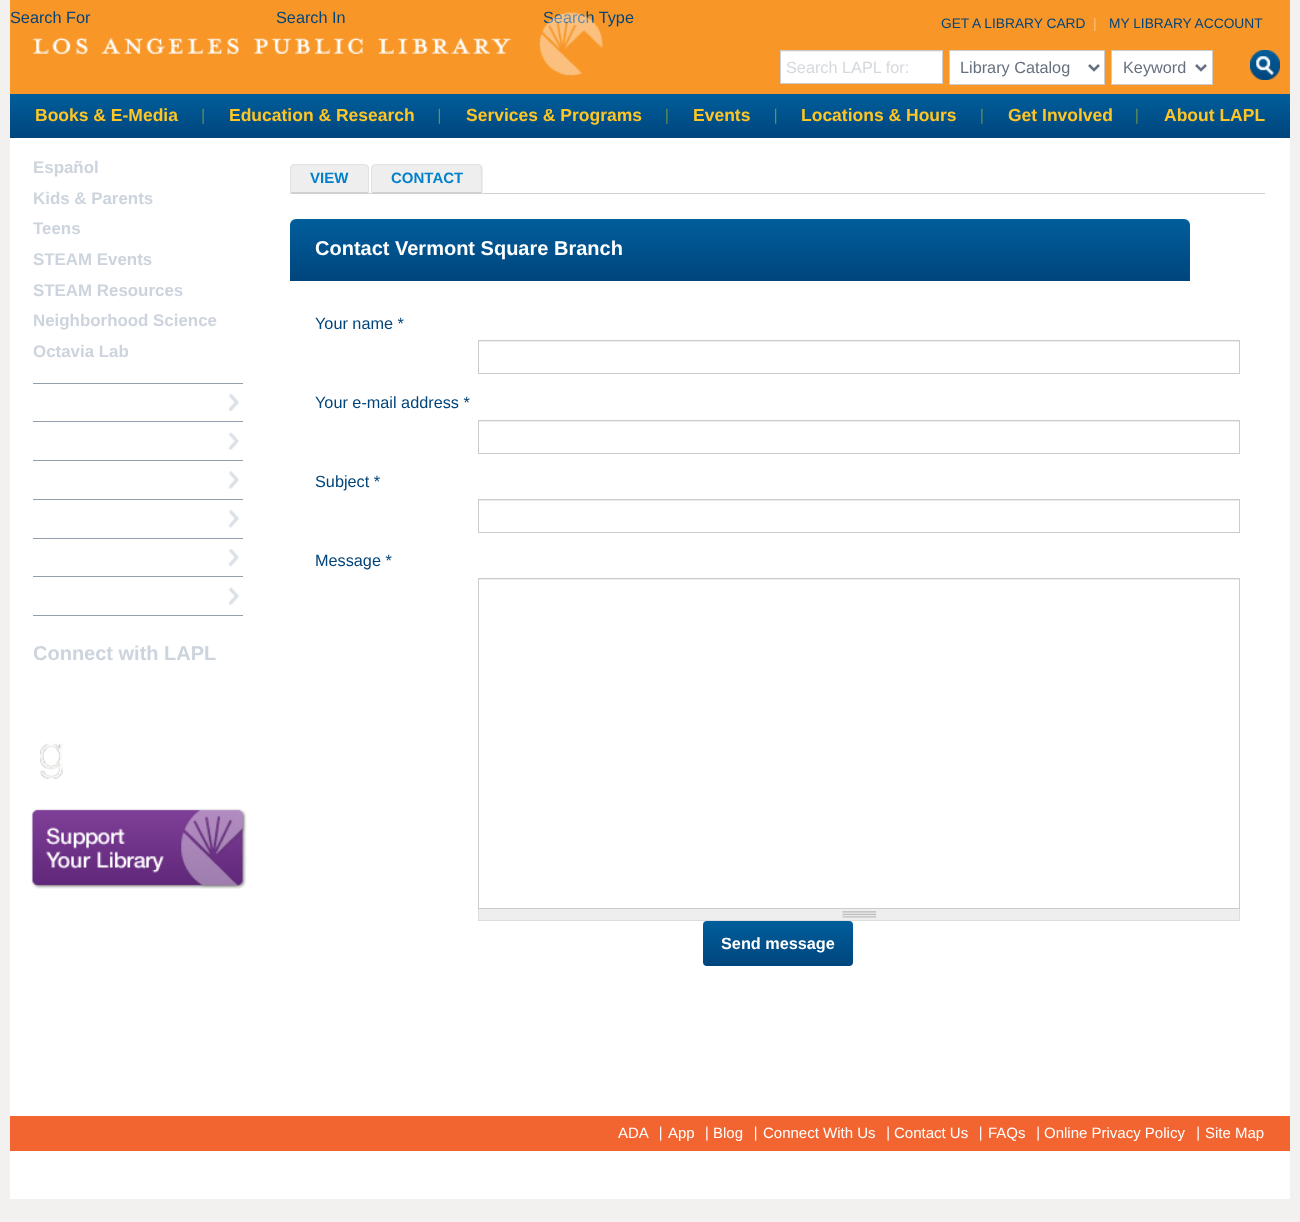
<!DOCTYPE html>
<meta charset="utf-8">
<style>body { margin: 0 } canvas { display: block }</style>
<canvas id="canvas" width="1300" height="1222"></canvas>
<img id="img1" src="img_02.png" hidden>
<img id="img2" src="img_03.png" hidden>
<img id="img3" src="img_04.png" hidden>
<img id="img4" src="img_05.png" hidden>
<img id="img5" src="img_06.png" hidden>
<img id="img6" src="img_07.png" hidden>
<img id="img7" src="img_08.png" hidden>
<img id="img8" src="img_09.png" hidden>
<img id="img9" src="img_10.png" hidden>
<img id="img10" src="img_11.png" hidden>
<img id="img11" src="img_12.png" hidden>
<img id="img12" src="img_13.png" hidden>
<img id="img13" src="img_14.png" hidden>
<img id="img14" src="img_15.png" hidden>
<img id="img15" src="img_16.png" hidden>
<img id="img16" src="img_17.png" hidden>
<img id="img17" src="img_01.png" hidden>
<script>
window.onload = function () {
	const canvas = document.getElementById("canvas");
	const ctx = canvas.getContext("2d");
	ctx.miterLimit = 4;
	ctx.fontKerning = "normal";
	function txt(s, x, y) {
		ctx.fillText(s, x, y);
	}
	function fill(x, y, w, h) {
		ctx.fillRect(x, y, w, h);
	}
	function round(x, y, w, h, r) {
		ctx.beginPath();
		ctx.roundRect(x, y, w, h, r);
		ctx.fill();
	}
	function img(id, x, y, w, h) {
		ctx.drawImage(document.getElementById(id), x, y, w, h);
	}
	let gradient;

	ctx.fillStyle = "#F3F1F0";
	fill(0, 0, 1300, 1222);
	ctx.fillStyle = "#FFFFFF";
	fill(10, 138, 1280, 1061);
	ctx.fillStyle = "#F89728";
	fill(10, 0, 1280, 94);
	ctx.fillStyle = "#FFFFFF";
	fill(781, 51, 161, 32);
	ctx.fillStyle = "#ECECEC";
	fill(781, 51, 160, 1);
	ctx.strokeStyle = "#CCCCCC";
	ctx.strokeRect(780.5, 50.5, 162, 33);
	ctx.fillStyle = "#FFFFFF";
	ctx.beginPath();
	ctx.rect(949.5, 50.5, 155, 34);
	ctx.fill();
	ctx.stroke();
	ctx.beginPath();
	ctx.moveTo(1089, 65);
	ctx.lineTo(1094, 70);
	ctx.lineTo(1099, 65);
	ctx.strokeStyle = "#66707E";
	ctx.lineWidth = 2.5;
	ctx.stroke();
	ctx.beginPath();
	ctx.rect(1111.5, 50.5, 101, 34);
	ctx.fill();
	ctx.strokeStyle = "#CCCCCC";
	ctx.lineWidth = 1;
	ctx.stroke();
	ctx.beginPath();
	ctx.moveTo(1196, 65);
	ctx.lineTo(1201, 70);
	ctx.lineTo(1206, 65);
	ctx.strokeStyle = "#66707E";
	ctx.lineWidth = 2.5;
	ctx.stroke();
	img("img1", 1250, 50, 30, 30);
	gradient = ctx.createLinearGradient(650, 94, 650, 138);
	gradient.addColorStop(0, "#005E9B");
	gradient.addColorStop(1, "#00457D");
	ctx.fillStyle = gradient;
	fill(10, 94, 1280, 44);
	img("img2", 202, 108, 2, 16);
	img("img3", 438, 108, 2, 16);
	img("img4", 666, 108, 2, 16);
	img("img5", 775, 108, 2, 16);
	img("img4", 981, 108, 2, 16);
	img("img4", 1136, 108, 2, 16);
	ctx.fillStyle = "#949EAC";
	fill(33, 383, 210, 1);
	img("img6", 228, 393, 11, 19);
	fill(33, 421, 210, 1);
	img("img7", 228, 432, 11, 18);
	fill(33, 460, 210, 1);
	img("img8", 228, 471, 11, 18);
	fill(33, 499, 210, 1);
	img("img9", 228, 510, 11, 18);
	fill(33, 538, 210, 1);
	img("img6", 228, 548, 11, 19);
	fill(33, 576, 210, 1);
	fill(33, 615, 210, 1);
	img("img10", 228, 587, 11, 18);
	img("img11", 40, 743, 23, 36);
	img("img12", 31, 808, 216, 81);
	ctx.fillStyle = "#D0D0D0";
	fill(369, 193, 896, 1);
	ctx.fillStyle = "#EEEEEE";
	ctx.beginPath();
	ctx.roundRect(290, 164, 79, 30, [5, 5, 0, 0]);
	ctx.fill();
	ctx.fillStyle = "#E1E1E1";
	ctx.beginPath();
	ctx.moveTo(295, 164);
	ctx.bezierCurveTo(294, 164, 292, 164, 292, 165);
	ctx.lineTo(292, 166);
	ctx.lineTo(295, 165);
	ctx.lineTo(364, 165);
	ctx.lineTo(366, 166);
	ctx.lineTo(367, 165);
	ctx.lineTo(364, 164);
	ctx.closePath();
	ctx.fill();
	ctx.beginPath();
	ctx.moveTo(367.5, 165);
	ctx.lineTo(369, 167.5);
	ctx.lineTo(369, 194);
	ctx.lineTo(367, 192);
	ctx.lineTo(368, 192);
	ctx.lineTo(368, 169);
	ctx.bezierCurveTo(368, 168, 367.5, 167, 366.5, 166);
	ctx.closePath();
	ctx.fill();
	ctx.fillStyle = "#D0D0D0";
	ctx.beginPath();
	ctx.moveTo(369, 194);
	ctx.lineTo(367, 192);
	ctx.lineTo(292, 192);
	ctx.lineTo(290, 194);
	ctx.closePath();
	ctx.fill();
	ctx.fillStyle = "#E1E1E1";
	ctx.beginPath();
	ctx.moveTo(290, 194);
	ctx.lineTo(292, 192);
	ctx.lineTo(291, 192);
	ctx.lineTo(291, 169);
	ctx.bezierCurveTo(291, 168, 291.5, 167, 292.5, 166);
	ctx.lineTo(291.5, 165.5);
	ctx.bezierCurveTo(290.5, 166, 290, 167.5, 290, 169);
	ctx.closePath();
	ctx.fill();
	ctx.fillStyle = "#EEEEEE";
	ctx.beginPath();
	ctx.roundRect(371, 164, 112, 30, [5, 5, 0, 0]);
	ctx.fill();
	ctx.fillStyle = "#E1E1E1";
	ctx.beginPath();
	ctx.moveTo(376, 164);
	ctx.lineTo(373, 165);
	ctx.lineTo(374, 166);
	ctx.lineTo(376, 165);
	ctx.lineTo(479, 165);
	ctx.lineTo(480, 166);
	ctx.lineTo(481, 165);
	ctx.bezierCurveTo(480, 165, 479, 164, 478, 164);
	ctx.closePath();
	ctx.fill();
	ctx.beginPath();
	ctx.moveTo(482, 193);
	ctx.lineTo(482, 169);
	ctx.bezierCurveTo(482, 167.5, 481.5, 166.5, 481, 165.5);
	ctx.lineTo(480, 166);
	ctx.bezierCurveTo(480.5, 167, 481, 168, 481, 169);
	ctx.lineTo(481, 192);
	ctx.closePath();
	ctx.fill();
	ctx.fillStyle = "#D0D0D0";
	ctx.beginPath();
	ctx.moveTo(482, 193);
	ctx.lineTo(482, 194);
	ctx.lineTo(371, 194);
	ctx.lineTo(373, 192);
	ctx.lineTo(481, 192);
	ctx.closePath();
	ctx.fill();
	ctx.fillStyle = "#E1E1E1";
	ctx.beginPath();
	ctx.moveTo(371, 194);
	ctx.lineTo(373, 192);
	ctx.lineTo(372, 192);
	ctx.lineTo(372, 169);
	ctx.bezierCurveTo(372, 168, 372.5, 167, 373.5, 166);
	ctx.lineTo(372.5, 165);
	ctx.lineTo(371, 167.5);
	ctx.closePath();
	ctx.fill();
	gradient = ctx.createLinearGradient(740, 219, 740, 281);
	gradient.addColorStop(0, "#005E9B");
	gradient.addColorStop(1, "#00457D");
	ctx.fillStyle = gradient;
	ctx.beginPath();
	ctx.roundRect(290, 219, 900, 62, [6, 6, 0, 0]);
	ctx.fill();
	ctx.fillStyle = "#ECECEC";
	fill(479, 341, 760, 1);
	ctx.strokeStyle = "#CCCCCC";
	ctx.lineWidth = 1;
	ctx.strokeRect(478.5, 340.5, 761, 33);
	fill(479, 421, 760, 1);
	ctx.strokeRect(478.5, 420.5, 761, 33);
	fill(479, 500, 760, 1);
	ctx.strokeRect(478.5, 499.5, 761, 33);
	fill(479, 579, 760, 1);
	ctx.strokeRect(478.5, 578.5, 761, 330);
	ctx.fillStyle = "#EEEEEE";
	fill(479, 909, 760, 11);
	img("img13", 842, 911, 35, 7);
	ctx.fillStyle = "#DDDDDD";
	fill(1239, 909, 1, 12);
	fill(478, 920, 762, 1);
	fill(478, 909, 1, 12);
	gradient = ctx.createLinearGradient(778, 921, 778, 966);
	gradient.addColorStop(0, "#005E9B");
	gradient.addColorStop(1, "#00457D");
	ctx.fillStyle = gradient;
	round(703, 921, 150, 45, 4);
	ctx.fillStyle = "#F26531";
	fill(10, 1116, 1280, 35);
	img("img14", 660, 1126, 2, 16);
	img("img15", 706, 1126, 2, 16);
	img("img14", 755, 1126, 2, 16);
	img("img16", 887, 1126, 2, 16);
	img("img14", 980, 1126, 2, 16);
	img("img16", 1037, 1126, 2, 16);
	img("img16", 1197, 1126, 2, 16);
	ctx.font = "16.25px Liberation Sans";
	ctx.fillStyle = "#00447A";
	txt("Search For", 10, 23);
	txt("Search In", 276, 23);
	txt("Search Type", 543, 23);
	img("img17", 32, 12, 571, 64);
	ctx.font = "13.75px Liberation Sans";
	txt("GET A LIBRARY CARD", 941, 28);
	ctx.fillStyle = "#FBC17E";
	txt("|", 1093, 28);
	ctx.fillStyle = "#00447A";
	txt("MY LIBRARY ACCOUNT", 1109, 28);
	ctx.font = "16.25px Liberation Sans";
	ctx.fillStyle = "#D5D8DC";
	txt("Search LAPL for:", 786, 73);
	ctx.fillStyle = "#66707E";
	txt("Library Catalog", 960, 73);
	txt("Keyword", 1123, 73);
	ctx.font = "bold 17.5px Liberation Sans";
	ctx.fillStyle = "#FEC527";
	txt("Books & E-Media", 35, 121);
	txt("Education & Research", 229, 121);
	txt("Services & Programs", 466, 121);
	txt("Events", 693, 121);
	txt("Locations & Hours", 801, 121);
	txt("Get Involved", 1008, 121);
	txt("About LAPL", 1164, 121);
	ctx.font = "bold 16.9px Liberation Sans";
	ctx.fillStyle = "#CDD4DD";
	txt("Español", 33, 173);
	txt("Kids & Parents", 33, 204);
	txt("Teens", 33, 234);
	txt("STEAM Events", 33, 265);
	txt("STEAM Resources", 33, 296);
	txt("Neighborhood Science", 33, 326);
	txt("Octavia Lab", 33, 357);
	ctx.font = "bold 20px Liberation Sans";
	txt("Connect with LAPL", 33, 660);
	ctx.font = "bold 15px Liberation Sans";
	ctx.fillStyle = "#0081CA";
	txt("VIEW", 310, 183);
	txt("CONTACT", 391, 183);
	ctx.font = "bold 20px Liberation Sans";
	ctx.fillStyle = "#FFFFFF";
	txt("Contact Vermont Square Branch", 315, 255);
	ctx.font = "16.25px Liberation Sans";
	ctx.fillStyle = "#00447A";
	txt("Your name *", 315, 329);
	txt("Your e-mail address *", 315, 408);
	txt("Subject *", 315, 487);
	txt("Message *", 315, 566);
	ctx.font = "bold 16.25px Liberation Sans";
	ctx.fillStyle = "#FFFFFF";
	txt("Send message", 721, 949);
	ctx.font = "15px Liberation Sans";
	txt("ADA", 618, 1138);
	txt("App", 668, 1138);
	txt("Blog", 713, 1138);
	txt("Connect With Us", 763, 1138);
	txt("Contact Us", 894, 1138);
	txt("FAQs", 988, 1138);
	txt("Online Privacy Policy", 1044, 1138);
	txt("Site Map", 1205, 1138);
};
</script>
